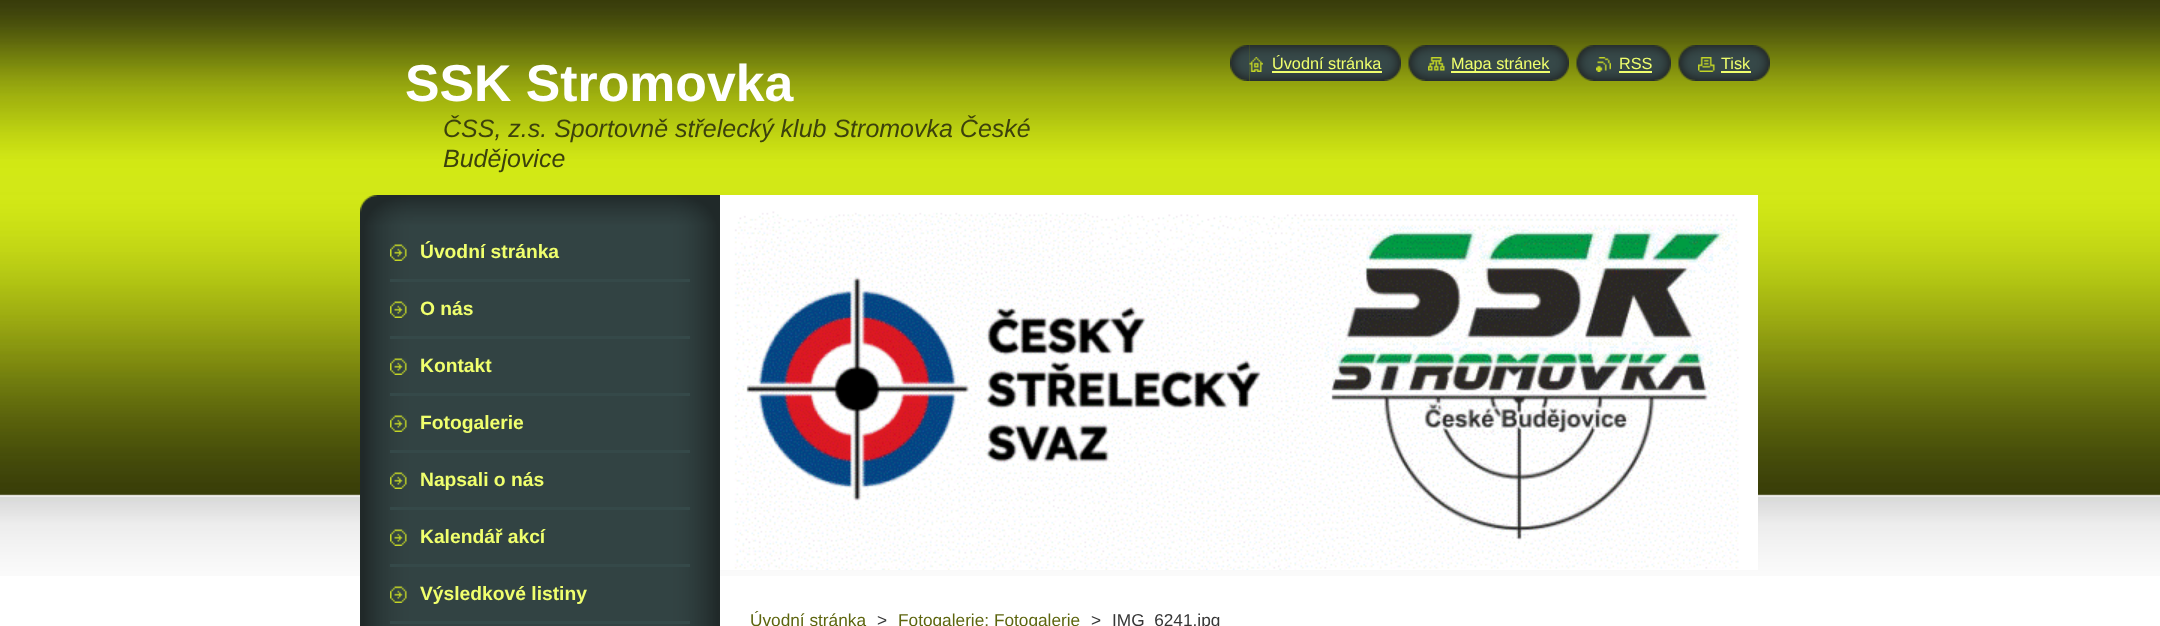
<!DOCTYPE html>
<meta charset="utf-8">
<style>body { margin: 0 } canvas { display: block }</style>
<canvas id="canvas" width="2160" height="626"></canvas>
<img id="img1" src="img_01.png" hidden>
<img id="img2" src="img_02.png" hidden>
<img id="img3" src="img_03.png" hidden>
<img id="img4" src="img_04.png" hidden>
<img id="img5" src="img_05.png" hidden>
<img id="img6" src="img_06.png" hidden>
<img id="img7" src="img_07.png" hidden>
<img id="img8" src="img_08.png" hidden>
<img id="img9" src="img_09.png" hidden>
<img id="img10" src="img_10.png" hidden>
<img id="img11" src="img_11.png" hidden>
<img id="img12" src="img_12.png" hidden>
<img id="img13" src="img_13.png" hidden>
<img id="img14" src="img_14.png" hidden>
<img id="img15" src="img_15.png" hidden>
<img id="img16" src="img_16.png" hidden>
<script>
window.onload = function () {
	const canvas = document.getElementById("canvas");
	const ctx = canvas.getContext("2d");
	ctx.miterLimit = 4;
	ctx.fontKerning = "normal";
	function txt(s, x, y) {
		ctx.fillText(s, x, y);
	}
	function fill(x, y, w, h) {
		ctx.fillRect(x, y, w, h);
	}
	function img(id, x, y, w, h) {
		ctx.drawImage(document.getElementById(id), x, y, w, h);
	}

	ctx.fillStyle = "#FFFFFF";
	fill(0, 0, 2160, 626);
	img("img1", 0, 0, 2160, 576);
	img("img2", 1230, 45, 20, 36);
	img("img3", 1249, 45, 152, 36);
	img("img4", 1249, 57, 14, 15);
	ctx.fillStyle = "#F0FF6D";
	fill(1272, 71, 110, 2);
	img("img5", 1408, 45, 20, 36);
	img("img6", 1428, 45, 141, 36);
	img("img7", 1428, 57, 17, 14);
	fill(1451, 71, 99, 2);
	img("img8", 1576, 45, 20, 36);
	img("img9", 1596, 45, 75, 36);
	img("img10", 1596, 57, 15, 15);
	fill(1619, 71, 33, 2);
	img("img8", 1678, 45, 20, 36);
	img("img11", 1698, 45, 72, 36);
	img("img12", 1698, 57, 17, 15);
	fill(1721, 71, 30, 2);
	img("img13", 360, 195, 360, 30);
	img("img14", 360, 225, 360, 401);
	ctx.fillStyle = "#354949";
	fill(390, 279, 300, 3);
	img("img15", 390, 244, 17, 17);
	fill(390, 336, 300, 3);
	img("img15", 390, 301, 17, 17);
	fill(390, 393, 300, 3);
	img("img15", 390, 358, 17, 17);
	fill(390, 450, 300, 3);
	img("img15", 390, 415, 17, 17);
	fill(390, 507, 300, 3);
	img("img15", 390, 472, 17, 17);
	fill(390, 564, 300, 3);
	img("img15", 390, 529, 17, 17);
	fill(390, 621, 300, 3);
	img("img15", 390, 586, 17, 17);
	img("img16", 720, 195, 1038, 375);
	ctx.font = "bold 51.75px Liberation Sans";
	ctx.fillStyle = "#FFFFFF";
	txt("SSK Stromovka", 405, 101);
	ctx.font = "italic 25px Liberation Sans";
	ctx.fillStyle = "#3C410C";
	txt("ČSS, z.s. Sportovně střelecký klub Stromovka České", 443, 137);
	txt("Budějovice", 443, 167);
	ctx.font = "16.25px Liberation Sans";
	ctx.fillStyle = "#F0FF6D";
	txt("Úvodní stránka", 1272, 69);
	txt("Mapa stránek", 1451, 69);
	txt("RSS", 1619, 69);
	txt("Tisk", 1721, 69);
	ctx.font = "bold 19.25px Liberation Sans";
	txt("Úvodní stránka", 420, 258);
	txt("O nás", 420, 315);
	txt("Kontakt", 420, 372);
	txt("Fotogalerie", 420, 429);
	txt("Napsali o nás", 420, 486);
	txt("Kalendář akcí", 420, 543);
	txt("Výsledkové listiny", 420, 600);
	ctx.font = "17.25px Liberation Sans";
	ctx.fillStyle = "#5D650E";
	txt("Úvodní stránka", 750, 626);
	ctx.fillStyle = "#363636";
	txt(">", 877, 626);
	ctx.fillStyle = "#5D650E";
	txt("Fotogalerie: Fotogalerie", 898, 626);
	ctx.fillStyle = "#363636";
	txt(">", 1091, 626);
	txt("IMG_6241.jpg", 1112, 626);
};
</script>
